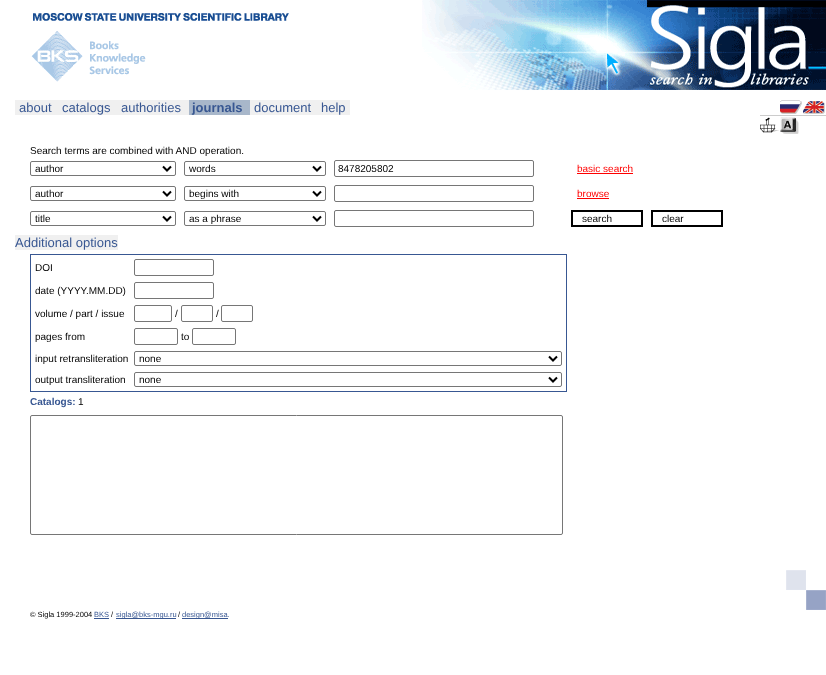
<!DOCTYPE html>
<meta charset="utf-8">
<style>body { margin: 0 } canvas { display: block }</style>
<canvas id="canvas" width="826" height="675"></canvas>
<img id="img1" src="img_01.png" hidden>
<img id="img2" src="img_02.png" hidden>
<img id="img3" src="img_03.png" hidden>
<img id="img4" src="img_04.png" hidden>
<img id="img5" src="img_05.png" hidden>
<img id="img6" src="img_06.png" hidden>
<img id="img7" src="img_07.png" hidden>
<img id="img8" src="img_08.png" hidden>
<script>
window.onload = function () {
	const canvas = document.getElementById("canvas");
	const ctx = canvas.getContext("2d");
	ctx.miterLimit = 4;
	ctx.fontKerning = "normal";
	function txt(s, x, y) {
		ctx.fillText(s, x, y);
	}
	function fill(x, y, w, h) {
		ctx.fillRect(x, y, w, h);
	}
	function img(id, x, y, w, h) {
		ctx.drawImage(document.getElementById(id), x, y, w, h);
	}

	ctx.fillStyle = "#FFFFFF";
	fill(0, 0, 826, 675);
	img("img1", 33, 13, 256, 8);
	img("img2", 422, 0, 404, 90);
	img("img3", 31, 31, 115, 51);
	ctx.fillStyle = "#F0F0F0";
	fill(15, 100, 174, 15);
	ctx.fillStyle = "#A8B7CA";
	fill(189, 100, 61, 15);
	ctx.fillStyle = "#F0F0F0";
	fill(250, 100, 100, 15);
	img("img4", 780, 100, 22, 14);
	img("img5", 803, 101, 22, 13);
	ctx.fillStyle = "#CCCCCC";
	fill(760, 115, 66, 1);
	img("img6", 760, 117, 19, 16);
	img("img7", 780, 117, 19, 17);
	ctx.beginPath();
	ctx.roundRect(30.5, 161.5, 145, 14, 1.5);
	ctx.strokeStyle = "#767676";
	ctx.stroke();
	ctx.beginPath();
	ctx.moveTo(163, 166.5);
	ctx.lineTo(167, 170.5);
	ctx.lineTo(171, 166.5);
	ctx.strokeStyle = "#000000";
	ctx.lineWidth = 2;
	ctx.stroke();
	ctx.beginPath();
	ctx.roundRect(184.5, 161.5, 141, 14, 1.5);
	ctx.strokeStyle = "#767676";
	ctx.lineWidth = 1;
	ctx.stroke();
	ctx.beginPath();
	ctx.moveTo(313, 166.5);
	ctx.lineTo(317, 170.5);
	ctx.lineTo(321, 166.5);
	ctx.strokeStyle = "#000000";
	ctx.lineWidth = 2;
	ctx.stroke();
	ctx.beginPath();
	ctx.roundRect(334.5, 160.5, 199, 16, 1.5);
	ctx.strokeStyle = "#767676";
	ctx.lineWidth = 1;
	ctx.stroke();
	ctx.fillStyle = "#FF0000";
	fill(577, 173, 56, 1);
	ctx.beginPath();
	ctx.roundRect(30.5, 186.5, 145, 14, 1.5);
	ctx.stroke();
	ctx.beginPath();
	ctx.moveTo(163, 191.5);
	ctx.lineTo(167, 195.5);
	ctx.lineTo(171, 191.5);
	ctx.strokeStyle = "#000000";
	ctx.lineWidth = 2;
	ctx.stroke();
	ctx.beginPath();
	ctx.roundRect(184.5, 186.5, 141, 14, 1.5);
	ctx.strokeStyle = "#767676";
	ctx.lineWidth = 1;
	ctx.stroke();
	ctx.beginPath();
	ctx.moveTo(313, 191.5);
	ctx.lineTo(317, 195.5);
	ctx.lineTo(321, 191.5);
	ctx.strokeStyle = "#000000";
	ctx.lineWidth = 2;
	ctx.stroke();
	ctx.beginPath();
	ctx.roundRect(334.5, 185.5, 199, 16, 1.5);
	ctx.strokeStyle = "#767676";
	ctx.lineWidth = 1;
	ctx.stroke();
	fill(577, 198, 32, 1);
	ctx.beginPath();
	ctx.roundRect(30.5, 211.5, 145, 14, 1.5);
	ctx.stroke();
	ctx.beginPath();
	ctx.moveTo(163, 216.5);
	ctx.lineTo(167, 220.5);
	ctx.lineTo(171, 216.5);
	ctx.strokeStyle = "#000000";
	ctx.lineWidth = 2;
	ctx.stroke();
	ctx.beginPath();
	ctx.roundRect(184.5, 211.5, 141, 14, 1.5);
	ctx.strokeStyle = "#767676";
	ctx.lineWidth = 1;
	ctx.stroke();
	ctx.beginPath();
	ctx.moveTo(313, 216.5);
	ctx.lineTo(317, 220.5);
	ctx.lineTo(321, 216.5);
	ctx.strokeStyle = "#000000";
	ctx.lineWidth = 2;
	ctx.stroke();
	ctx.beginPath();
	ctx.roundRect(334.5, 210.5, 199, 16, 1.5);
	ctx.strokeStyle = "#767676";
	ctx.lineWidth = 1;
	ctx.stroke();
	ctx.strokeStyle = "#000000";
	ctx.lineWidth = 2;
	ctx.strokeRect(572, 211, 70, 15);
	ctx.strokeRect(652, 211, 70, 15);
	ctx.fillStyle = "#F0F0F0";
	fill(15, 235, 103, 15);
	ctx.strokeStyle = "#385792";
	ctx.lineWidth = 1;
	ctx.strokeRect(30.5, 254.5, 536, 137);
	ctx.beginPath();
	ctx.roundRect(134.5, 259.5, 79, 16, 1.5);
	ctx.strokeStyle = "#767676";
	ctx.stroke();
	ctx.beginPath();
	ctx.roundRect(134.5, 282.5, 79, 16, 1.5);
	ctx.stroke();
	ctx.beginPath();
	ctx.roundRect(134.5, 305.5, 37, 16, 1.5);
	ctx.stroke();
	ctx.beginPath();
	ctx.roundRect(181.5, 305.5, 31, 16, 1.5);
	ctx.stroke();
	ctx.beginPath();
	ctx.roundRect(221.5, 305.5, 31, 16, 1.5);
	ctx.stroke();
	ctx.beginPath();
	ctx.roundRect(134.5, 328.5, 43, 16, 1.5);
	ctx.stroke();
	ctx.beginPath();
	ctx.roundRect(192.5, 328.5, 43, 16, 1.5);
	ctx.stroke();
	ctx.beginPath();
	ctx.roundRect(134.5, 351.5, 427, 14, 1.5);
	ctx.stroke();
	ctx.beginPath();
	ctx.moveTo(549, 356.5);
	ctx.lineTo(553, 360.5);
	ctx.lineTo(557, 356.5);
	ctx.strokeStyle = "#000000";
	ctx.lineWidth = 2;
	ctx.stroke();
	ctx.beginPath();
	ctx.roundRect(134.5, 372.5, 427, 14, 1.5);
	ctx.strokeStyle = "#767676";
	ctx.lineWidth = 1;
	ctx.stroke();
	ctx.beginPath();
	ctx.moveTo(549, 377.5);
	ctx.lineTo(553, 381.5);
	ctx.lineTo(557, 377.5);
	ctx.strokeStyle = "#000000";
	ctx.lineWidth = 2;
	ctx.stroke();
	ctx.beginPath();
	ctx.roundRect(30.5, 415.5, 532, 119, 1.5);
	ctx.strokeStyle = "#767676";
	ctx.lineWidth = 1;
	ctx.stroke();
	img("img8", 786, 570, 40, 40);
	ctx.fillStyle = "#385792";
	fill(94, 618, 15, 1);
	fill(116, 618, 60, 1);
	fill(182, 618, 46, 1);
	ctx.font = "13px Liberation Sans";
	txt("about", 19, 112);
	txt("catalogs", 62, 112);
	txt("authorities", 121, 112);
	ctx.font = "bold 13px Liberation Sans";
	txt("journals", 192, 112);
	ctx.font = "13px Liberation Sans";
	txt("document", 254, 112);
	txt("help", 321, 112);
	ctx.font = "10px Liberation Sans";
	ctx.fillStyle = "#000000";
	txt("Search terms are combined with AND operation.", 30, 154);
	txt("author", 35, 172);
	txt("words", 189, 172);
	txt("8478205802", 338, 172);
	ctx.fillStyle = "#FF0000";
	txt("basic search", 577, 172);
	ctx.fillStyle = "#000000";
	txt("author", 35, 197);
	txt("begins with", 189, 197);
	ctx.fillStyle = "#FF0000";
	txt("browse", 577, 197);
	ctx.fillStyle = "#000000";
	txt("title", 35, 222);
	txt("as a phrase", 189, 222);
	txt("search", 582, 222);
	txt("clear", 662, 222);
	ctx.font = "13px Liberation Sans";
	ctx.fillStyle = "#385792";
	txt("Additional options", 15, 247);
	ctx.font = "10px Liberation Sans";
	ctx.fillStyle = "#000000";
	txt("DOI", 35, 271);
	txt("date (YYYY.MM.DD)", 35, 294);
	txt("volume / part / issue", 35, 317);
	txt("/", 175, 317);
	txt("/", 216, 317);
	txt("pages from", 35, 340);
	txt("to", 181, 340);
	txt("input retransliteration", 35, 362);
	txt("none", 139, 362);
	txt("output transliteration", 35, 383);
	txt("none", 139, 383);
	ctx.font = "bold 10px Liberation Sans";
	ctx.fillStyle = "#385792";
	txt("Catalogs:", 30, 405);
	ctx.font = "10px Liberation Sans";
	ctx.fillStyle = "#000000";
	txt("1", 78, 405);
	ctx.font = "7.5px Liberation Sans";
	txt("© Sigla 1999-2004", 30, 617);
	ctx.fillStyle = "#385792";
	txt("BKS", 94, 617);
	ctx.fillStyle = "#000000";
	txt("/", 111, 617);
	ctx.fillStyle = "#385792";
	txt("sigla@bks-mgu.ru", 116, 617);
	ctx.fillStyle = "#000000";
	txt("/", 178, 617);
	ctx.fillStyle = "#385792";
	txt("design@misa.", 182, 617);
};
</script>
